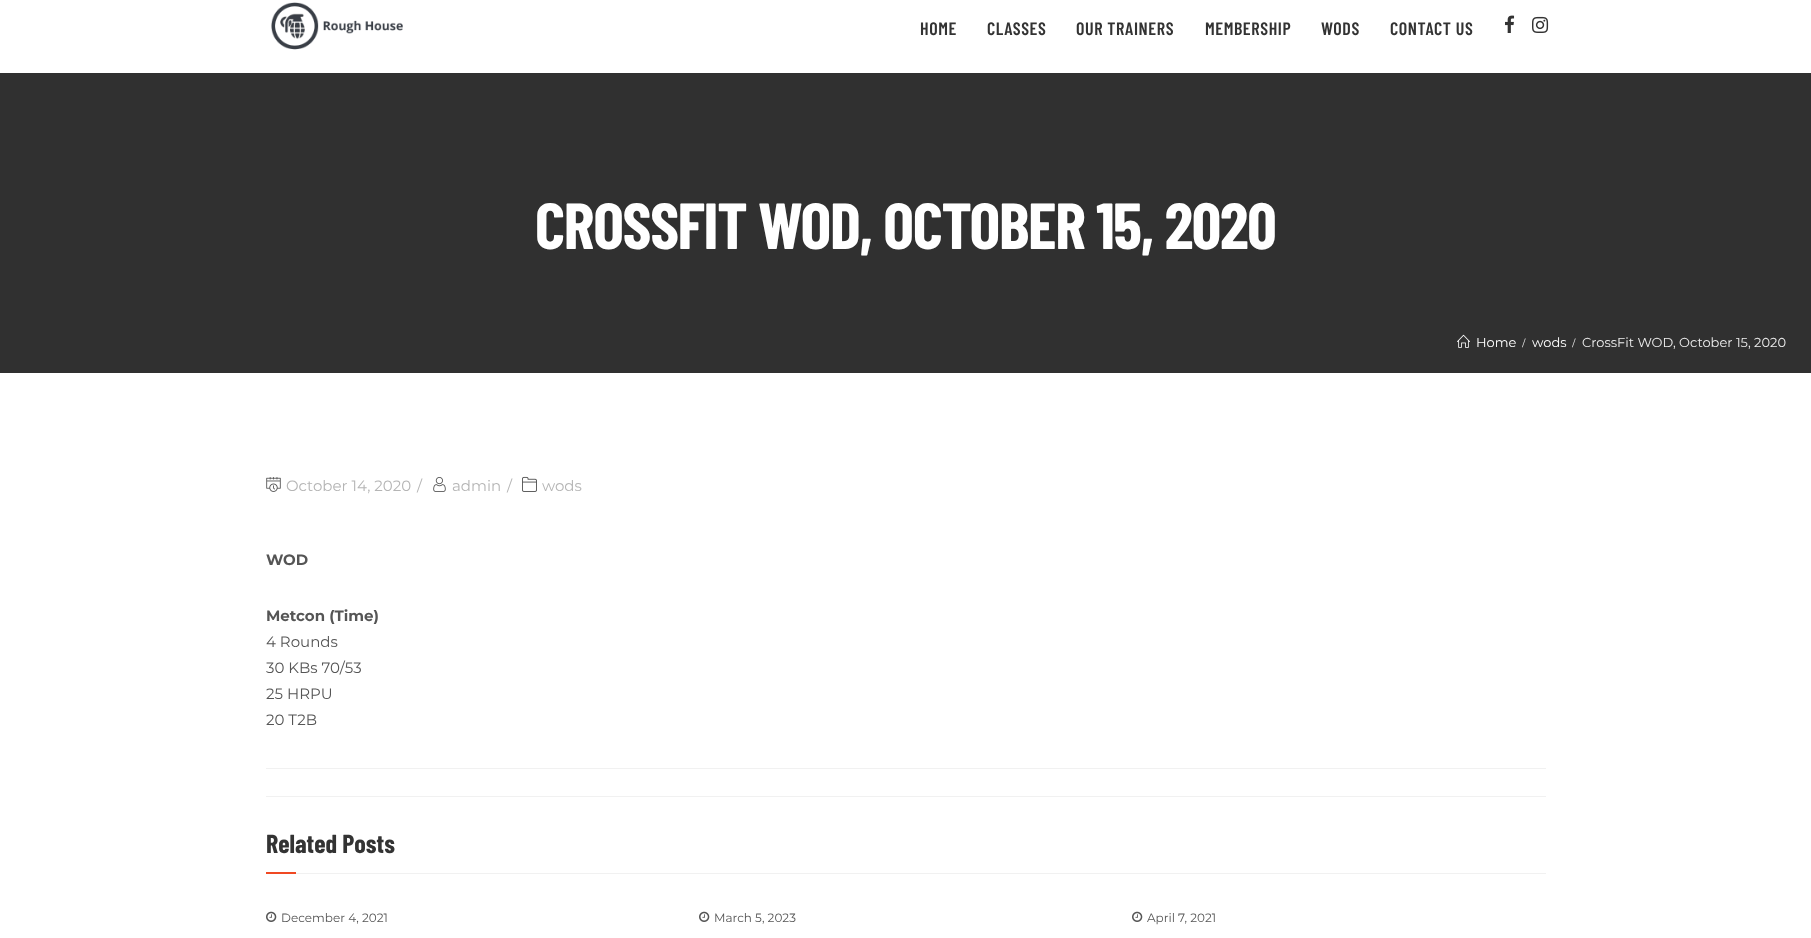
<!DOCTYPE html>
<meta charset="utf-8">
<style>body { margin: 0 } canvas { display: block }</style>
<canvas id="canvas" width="1811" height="938"></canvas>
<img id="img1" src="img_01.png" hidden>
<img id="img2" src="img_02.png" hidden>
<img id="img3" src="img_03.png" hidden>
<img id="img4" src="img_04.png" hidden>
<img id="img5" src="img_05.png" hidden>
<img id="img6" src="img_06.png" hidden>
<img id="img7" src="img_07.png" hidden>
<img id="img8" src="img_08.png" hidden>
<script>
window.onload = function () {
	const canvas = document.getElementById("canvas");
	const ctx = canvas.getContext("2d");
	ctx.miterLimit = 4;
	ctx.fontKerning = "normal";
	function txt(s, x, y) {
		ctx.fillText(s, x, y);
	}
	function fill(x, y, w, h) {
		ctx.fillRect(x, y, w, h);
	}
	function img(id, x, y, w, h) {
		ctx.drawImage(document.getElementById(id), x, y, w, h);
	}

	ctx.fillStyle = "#FFFFFF";
	fill(0, 0, 1811, 938);
	img("img1", 271, 2, 132, 48);
	img("img2", 1505, 15, 10, 18);
	img("img3", 1532, 16, 17, 17);
	ctx.fillStyle = "#303030";
	fill(0, 73, 1811, 300);
	img("img4", 1457, 334, 13, 14);
	img("img5", 266, 477, 15, 15);
	img("img6", 433, 477, 13, 15);
	img("img7", 522, 476, 15, 16);
	ctx.fillStyle = "#F1F1F1";
	fill(266, 768, 1280, 1);
	fill(266, 796, 1280, 1);
	ctx.fillStyle = "#F04923";
	fill(266, 872, 30, 2);
	ctx.fillStyle = "#F1F1F1";
	fill(296, 873, 1250, 1);
	img("img8", 266, 911, 11, 11);
	img("img8", 699, 911, 11, 11);
	img("img8", 1132, 911, 11, 11);
	ctx.letterSpacing = "0.6px";
	ctx.font = "600 18px Barlow Condensed";
	ctx.fillStyle = "#333333";
	txt("HOME", 920, 35);
	txt("CLASSES", 987, 35);
	txt("OUR TRAINERS", 1076, 35);
	txt("MEMBERSHIP", 1205, 35);
	txt("WODS", 1321, 35);
	txt("CONTACT US", 1390, 35);
	ctx.letterSpacing = "-1.3px";
	ctx.font = "bold 65px Barlow Condensed";
	ctx.fillStyle = "#FFFFFF";
	txt("CROSSFIT WOD, OCTOBER 15, 2020", 535, 249);
	ctx.letterSpacing = "0px";
	ctx.font = "13px Montserrat";
	txt("Home", 1476, 347);
	ctx.font = "13px Liberation Serif";
	ctx.fillStyle = "#EEEEEE";
	txt("/", 1522, 347);
	ctx.font = "13px Montserrat";
	ctx.fillStyle = "#FFFFFF";
	txt("wods", 1532, 347);
	ctx.font = "13px Liberation Serif";
	ctx.fillStyle = "#EEEEEE";
	txt("/", 1572, 347);
	ctx.font = "13px Montserrat";
	txt("CrossFit WOD, October 15, 2020", 1582, 347);
	ctx.font = "15px Montserrat";
	ctx.fillStyle = "#B5B5B5";
	txt("October 14, 2020", 286, 491);
	txt("/", 417, 491);
	txt("admin", 452, 491);
	txt("/", 507, 491);
	txt("wods", 542, 491);
	ctx.font = "bold 15px Montserrat";
	ctx.fillStyle = "#555555";
	txt("WOD", 266, 565);
	txt("Metcon (Time)", 266, 621);
	ctx.font = "15px Montserrat";
	txt("4 Rounds", 266, 647);
	txt("30 KBs 70/53", 266, 673);
	txt("25 HRPU", 266, 699);
	txt("20 T2B", 266, 725);
	ctx.font = "bold 26px Barlow Condensed";
	ctx.fillStyle = "#333333";
	txt("Related Posts", 266, 853);
	ctx.font = "12px Montserrat";
	ctx.fillStyle = "#555555";
	txt("December 4, 2021", 281, 922);
	txt("March 5, 2023", 714, 922);
	txt("April 7, 2021", 1147, 922);
};
</script>
